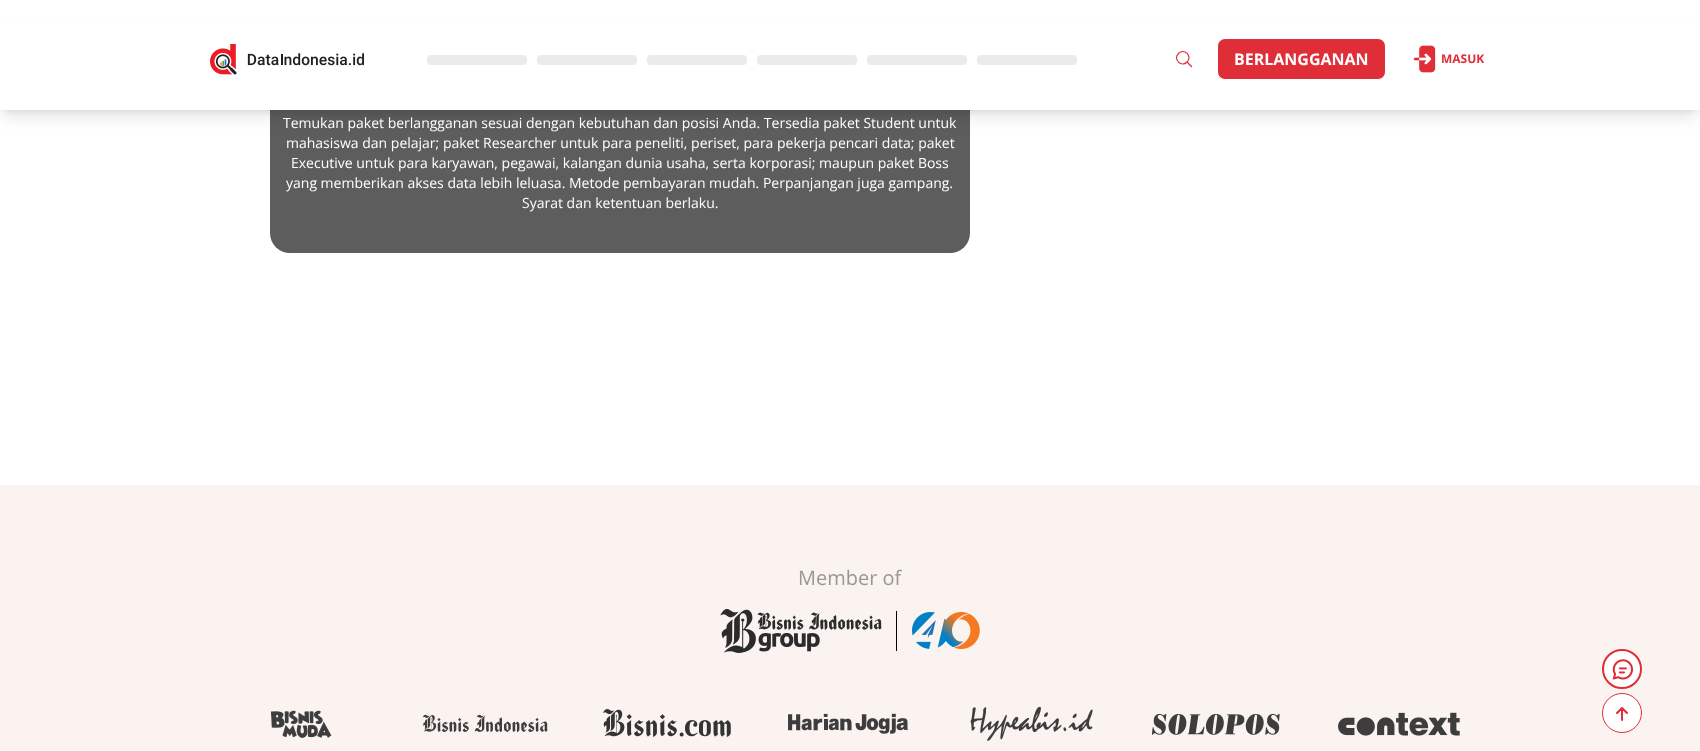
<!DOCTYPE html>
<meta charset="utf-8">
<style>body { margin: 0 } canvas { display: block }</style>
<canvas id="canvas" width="1700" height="751"></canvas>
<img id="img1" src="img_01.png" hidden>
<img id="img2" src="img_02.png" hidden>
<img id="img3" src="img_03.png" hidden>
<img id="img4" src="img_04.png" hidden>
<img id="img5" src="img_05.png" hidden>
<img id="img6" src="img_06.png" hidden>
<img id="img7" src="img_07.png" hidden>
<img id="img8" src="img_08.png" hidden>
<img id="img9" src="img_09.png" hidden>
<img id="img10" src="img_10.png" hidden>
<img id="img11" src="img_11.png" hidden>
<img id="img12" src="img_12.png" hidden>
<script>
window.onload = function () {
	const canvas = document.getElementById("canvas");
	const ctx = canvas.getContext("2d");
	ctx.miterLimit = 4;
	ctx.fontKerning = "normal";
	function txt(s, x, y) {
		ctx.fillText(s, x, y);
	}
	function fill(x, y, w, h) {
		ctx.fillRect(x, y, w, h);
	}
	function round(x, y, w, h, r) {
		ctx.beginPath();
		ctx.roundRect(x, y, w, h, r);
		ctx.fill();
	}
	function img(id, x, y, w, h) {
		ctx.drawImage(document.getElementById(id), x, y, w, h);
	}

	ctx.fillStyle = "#FFFFFF";
	fill(0, 0, 1700, 751);
	ctx.fillStyle = "#5D5D5D";
	round(270, 44, 700, 209, 20);
	ctx.fillStyle = "rgba(0, 0, 0, 0.1)";
	ctx.filter = "blur(3px)";
	ctx.beginPath();
	ctx.rect(4, 28, 1692, 82);
	ctx.fill();
	ctx.filter = "none";
	ctx.filter = "blur(7.5px)";
	ctx.beginPath();
	ctx.rect(3, 33, 1694, 84);
	ctx.fill();
	ctx.filter = "none";
	ctx.fillStyle = "#FFFFFF";
	fill(0, 22, 1700, 88);
	img("img1", 210, 44, 154, 31);
	ctx.fillStyle = "#EBEBEB";
	round(427, 55, 100, 10, 4);
	round(537, 55, 100, 10, 4);
	round(647, 55, 100, 10, 4);
	round(757, 55, 100, 10, 4);
	round(867, 55, 100, 10, 4);
	round(977, 55, 100, 10, 4);
	ctx.beginPath();
	ctx.moveTo(1191.5, 66.5);
	ctx.lineTo(1187, 62);
	ctx.moveTo(1187, 62);
	ctx.bezierCurveTo(1193, 56.5, 1184, 47.5, 1178.5, 53.5);
	ctx.bezierCurveTo(1172.5, 59, 1181.5, 68, 1187, 62);
	ctx.closePath();
	ctx.strokeStyle = "#DF2E38";
	ctx.lineWidth = 1.2;
	ctx.lineCap = "round";
	ctx.lineJoin = "round";
	ctx.stroke();
	ctx.fillStyle = "#DF2E38";
	ctx.beginPath();
	ctx.roundRect(1217.5, 38.5, 168, 41, 7.5);
	ctx.fill();
	ctx.strokeStyle = "#FFFFFF";
	ctx.lineWidth = 1;
	ctx.lineJoin = "miter";
	ctx.stroke();
	img("img2", 1413, 45, 23, 28);
	ctx.fillStyle = "#FAF3F0";
	fill(0, 485, 1700, 266);
	img("img3", 720, 609, 162, 44);
	ctx.fillStyle = "#000000";
	fill(896, 611, 1, 40);
	img("img4", 912, 612, 68, 37);
	img("img5", 271, 710, 61, 28);
	img("img6", 422, 714, 126, 19);
	img("img7", 603, 709, 128, 28);
	img("img8", 788, 713, 120, 21);
	img("img9", 970, 706, 123, 35);
	img("img10", 1151, 713, 129, 22);
	img("img11", 1338, 712, 122, 24);
	ctx.fillStyle = "#FFFFFF";
	ctx.beginPath();
	ctx.arc(1622, 669, 19, 0, Math.PI * 2);
	ctx.fill();
	ctx.strokeStyle = "#DF2E38";
	ctx.lineWidth = 2;
	ctx.stroke();
	img("img12", 1612, 659, 21, 21);
	ctx.beginPath();
	ctx.arc(1622, 713, 19.5, 0, Math.PI * 2);
	ctx.fill();
	ctx.lineWidth = 1;
	ctx.stroke();
	ctx.beginPath();
	ctx.moveTo(1617, 713);
	ctx.lineTo(1622, 708);
	ctx.moveTo(1622, 708);
	ctx.lineTo(1627, 713);
	ctx.moveTo(1622, 708);
	ctx.lineTo(1622, 720);
	ctx.lineWidth = 2;
	ctx.lineJoin = "round";
	ctx.stroke();
	ctx.font = "bold 16px Open Sans";
	txt("BERLANGGANAN", 1234, 65);
	ctx.font = "bold 12px Open Sans";
	ctx.fillStyle = "#DF2E38";
	txt("MASUK", 1441, 63);
	ctx.font = "14px Open Sans";
	ctx.fillStyle = "#FFFFFF";
	txt("Temukan paket berlangganan sesuai dengan kebutuhan dan posisi Anda. Tersedia paket Student untuk", 283, 128);
	txt("mahasiswa dan pelajar; paket Researcher untuk para peneliti, periset, para pekerja pencari data; paket", 286, 148);
	txt("Executive untuk para karyawan, pegawai, kalangan dunia usaha, serta korporasi; maupun paket Boss", 291, 168);
	txt("yang memberikan akses data lebih leluasa. Metode pembayaran mudah. Perpanjangan juga gampang.", 286, 188);
	txt("Syarat dan ketentuan berlaku.", 522, 208);
	ctx.font = "20px Open Sans";
	ctx.fillStyle = "#989898";
	txt("Member of", 798, 585);
};
</script>
